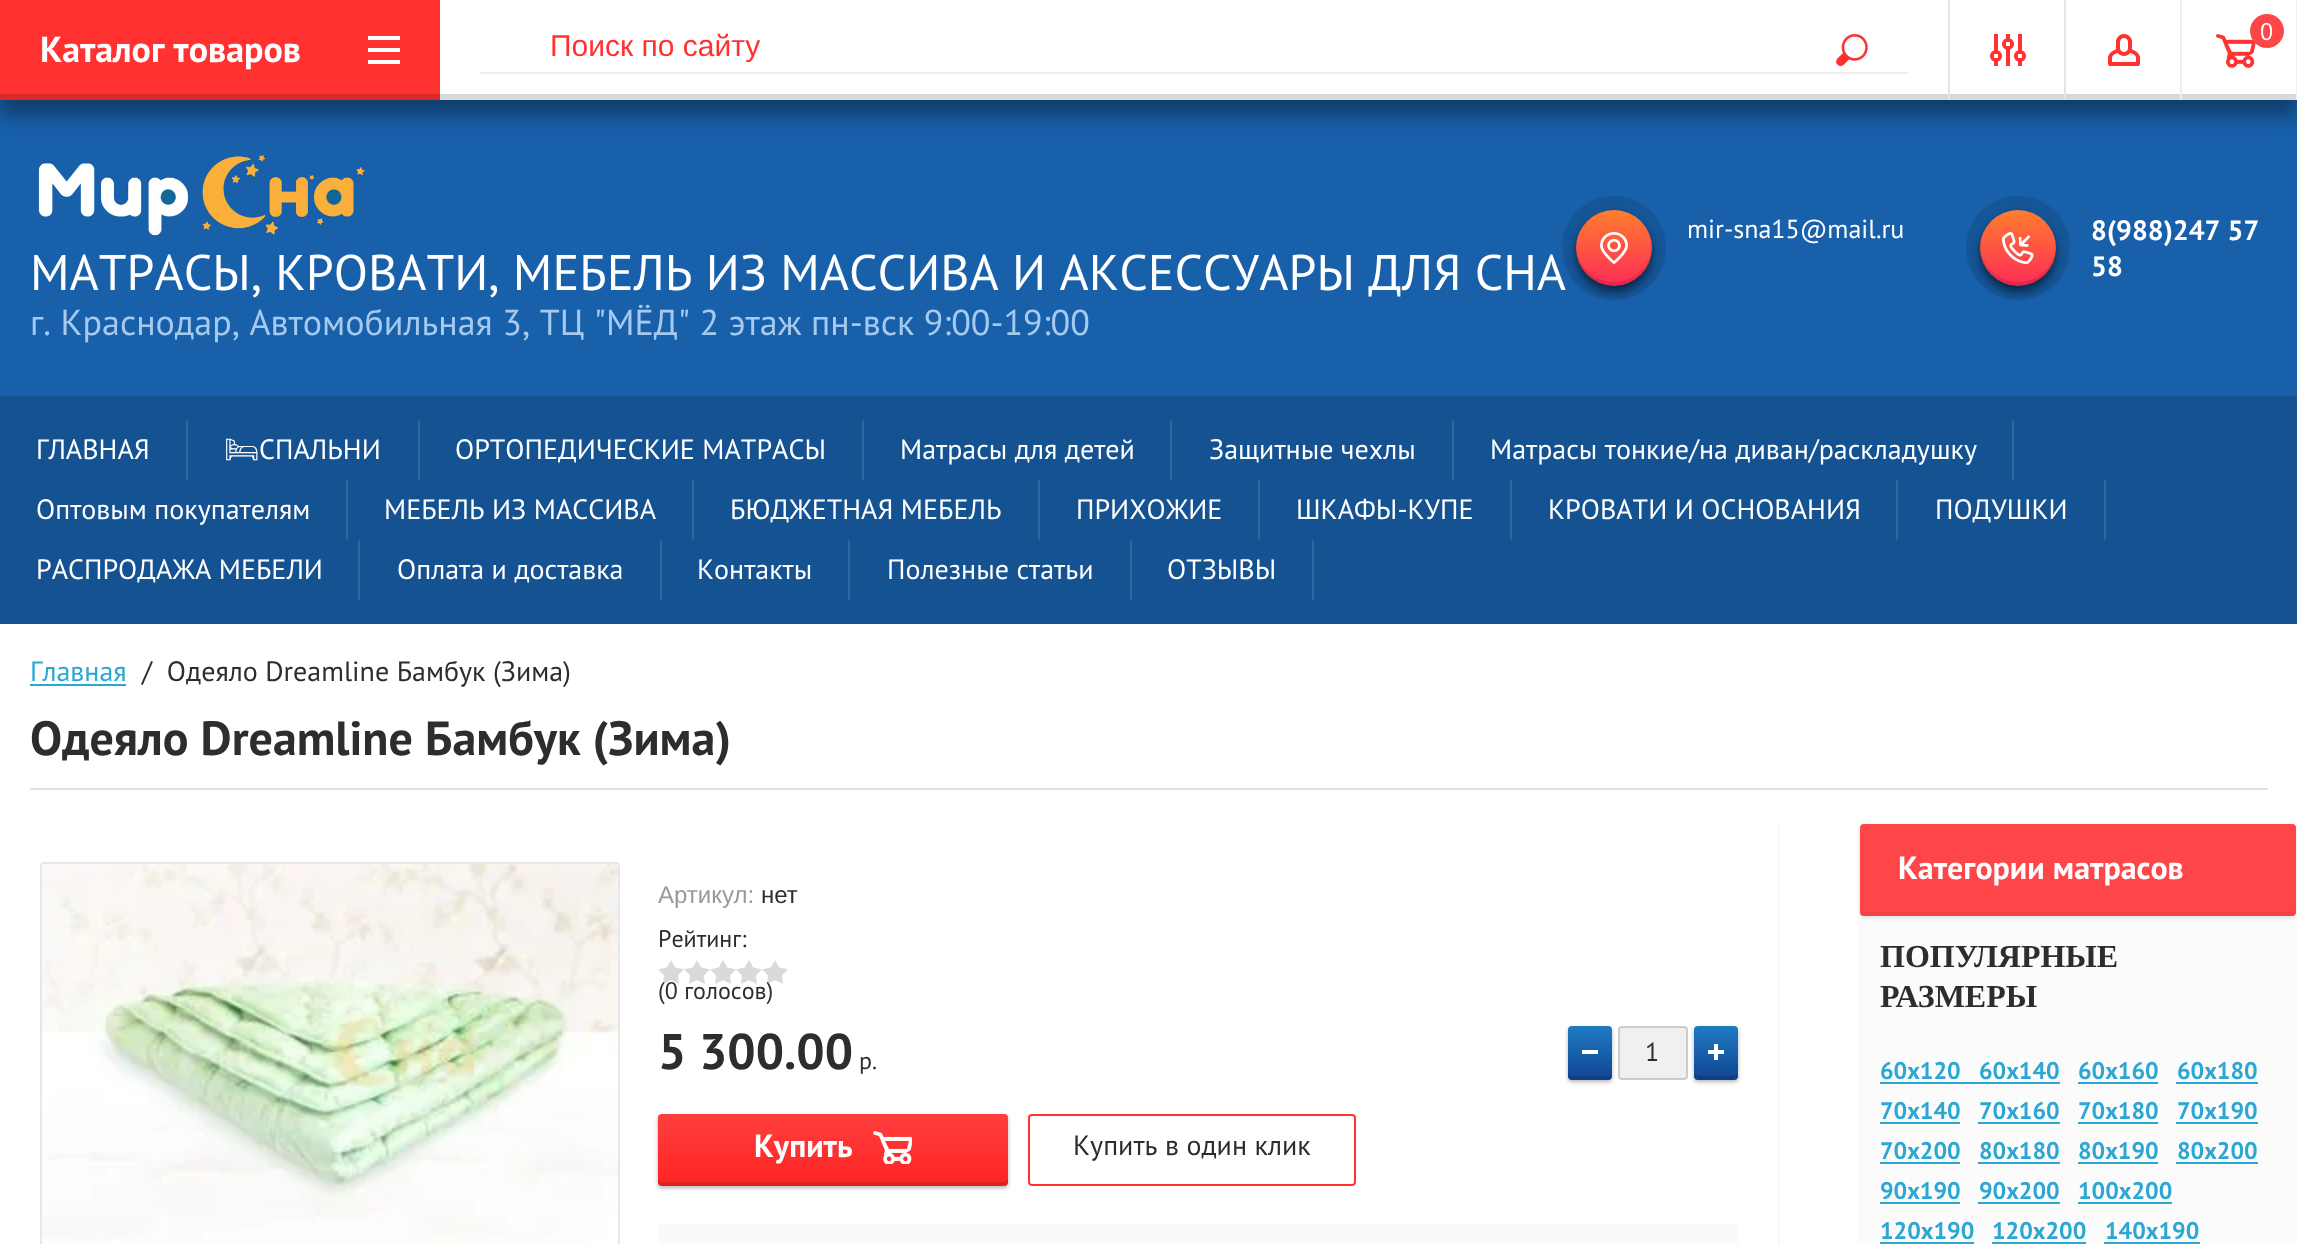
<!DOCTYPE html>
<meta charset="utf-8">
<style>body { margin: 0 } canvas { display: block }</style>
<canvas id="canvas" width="2297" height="1244"></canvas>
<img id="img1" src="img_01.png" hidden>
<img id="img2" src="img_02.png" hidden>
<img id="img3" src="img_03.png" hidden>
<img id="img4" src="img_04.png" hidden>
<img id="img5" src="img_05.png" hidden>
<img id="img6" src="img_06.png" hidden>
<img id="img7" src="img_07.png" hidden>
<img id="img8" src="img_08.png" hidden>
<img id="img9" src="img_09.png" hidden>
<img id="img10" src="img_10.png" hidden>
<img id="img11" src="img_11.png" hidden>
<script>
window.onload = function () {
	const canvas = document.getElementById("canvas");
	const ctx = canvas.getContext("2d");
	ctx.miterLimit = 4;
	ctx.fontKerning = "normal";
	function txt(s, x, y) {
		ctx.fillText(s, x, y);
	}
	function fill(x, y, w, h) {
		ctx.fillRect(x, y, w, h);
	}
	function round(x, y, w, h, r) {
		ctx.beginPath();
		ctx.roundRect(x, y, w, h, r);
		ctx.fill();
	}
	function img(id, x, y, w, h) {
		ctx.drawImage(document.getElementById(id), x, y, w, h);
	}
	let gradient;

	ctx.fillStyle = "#FFFFFF";
	fill(0, 0, 2297, 1244);
	ctx.fillStyle = "#1860AA";
	fill(0, 100, 2297, 296);
	ctx.fillStyle = "rgba(0, 0, 0, 0.36)";
	ctx.filter = "blur(10px)";
	ctx.beginPath();
	ctx.rect(0, 16, 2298, 100);
	ctx.fill();
	ctx.filter = "none";
	ctx.fillStyle = "#FFFFFF";
	fill(440, 0, 1856, 94);
	ctx.fillStyle = "#D9D9D9";
	fill(440, 94, 1857, 6);
	ctx.fillStyle = "#FF3131";
	fill(0, 0, 440, 94);
	ctx.fillStyle = "#D92A2A";
	fill(0, 94, 440, 6);
	img("img1", 368, 36, 32, 28);
	ctx.fillStyle = "#EEEEEE";
	fill(480, 72, 1428, 2);
	img("img2", 1836, 34, 32, 32);
	fill(2296, 0, 1, 100);
	ctx.fillStyle = "#E5E5E5";
	fill(1948, 0, 2, 100);
	img("img3", 1990, 34, 36, 32);
	fill(2064, 0, 2, 100);
	img("img4", 2108, 34, 32, 32);
	ctx.fillStyle = "#EEEEEE";
	fill(2180, 0, 2, 100);
	img("img5", 2216, 34, 40, 34);
	ctx.fillStyle = "#FE4649";
	ctx.beginPath();
	ctx.arc(2267, 31, 17, 0, Math.PI * 2);
	ctx.fill();
	ctx.fillStyle = "rgba(0, 0, 0, 0.55)";
	ctx.filter = "blur(5px)";
	ctx.beginPath();
	ctx.roundRect(1576, 216, 76, 76, 38);
	ctx.fill();
	ctx.filter = "none";
	gradient = ctx.createLinearGradient(1614, 286, 1614, 210);
	gradient.addColorStop(0, "#FD2B57");
	gradient.addColorStop(1, "#FF7D2E");
	ctx.fillStyle = gradient;
	ctx.beginPath();
	ctx.arc(1614, 248, 38, 0, Math.PI * 2);
	ctx.fill();
	ctx.fillStyle = "rgba(0, 0, 0, 0.11)";
	ctx.beginPath();
	ctx.moveTo(1576, 246);
	ctx.bezierCurveTo(1576, 254, 1578, 262, 1582, 269);
	ctx.bezierCurveTo(1604, 301, 1654, 284, 1652, 246);
	ctx.bezierCurveTo(1651, 266, 1634, 282, 1614, 282);
	ctx.bezierCurveTo(1594, 282, 1577, 266, 1576, 246);
	ctx.closePath();
	ctx.fill();
	ctx.beginPath();
	ctx.arc(1614, 248, 45, 0, Math.PI * 2);
	ctx.strokeStyle = "rgba(0, 0, 0, 0.1)";
	ctx.lineWidth = 14;
	ctx.stroke();
	img("img6", 1600, 232, 28, 32);
	ctx.fillStyle = "rgba(0, 0, 0, 0.55)";
	ctx.filter = "blur(5px)";
	ctx.beginPath();
	ctx.roundRect(1980, 216, 76, 76, 38);
	ctx.fill();
	ctx.filter = "none";
	gradient = ctx.createLinearGradient(2018, 286, 2018, 210);
	gradient.addColorStop(0, "#FD2B57");
	gradient.addColorStop(1, "#FF7D2E");
	ctx.fillStyle = gradient;
	ctx.beginPath();
	ctx.arc(2018, 248, 38, 0, Math.PI * 2);
	ctx.fill();
	ctx.fillStyle = "rgba(0, 0, 0, 0.11)";
	ctx.beginPath();
	ctx.moveTo(1980, 246);
	ctx.bezierCurveTo(1978, 284, 2028, 301, 2050, 269);
	ctx.bezierCurveTo(2054, 262, 2056, 254, 2056, 246);
	ctx.bezierCurveTo(2055, 266, 2038, 282, 2018, 282);
	ctx.bezierCurveTo(1998, 282, 1981, 266, 1980, 246);
	ctx.closePath();
	ctx.fill();
	ctx.beginPath();
	ctx.arc(2018, 248, 45, 0, Math.PI * 2);
	ctx.stroke();
	img("img7", 2002, 232, 32, 32);
	img("img8", 38, 155, 327, 81);
	ctx.fillStyle = "#145291";
	fill(0, 396, 2297, 228);
	ctx.fillStyle = "#31659B";
	fill(186, 420, 2, 60);
	fill(418, 420, 2, 60);
	fill(862, 420, 2, 60);
	fill(1170, 420, 2, 60);
	fill(1452, 420, 2, 60);
	fill(2012, 420, 2, 60);
	fill(346, 480, 2, 60);
	fill(692, 480, 2, 60);
	fill(1038, 480, 2, 60);
	fill(1258, 480, 2, 60);
	fill(1510, 480, 2, 60);
	fill(1896, 480, 2, 60);
	fill(2104, 480, 2, 60);
	fill(358, 540, 2, 60);
	fill(660, 540, 2, 60);
	fill(848, 540, 2, 60);
	fill(1130, 540, 2, 60);
	fill(1312, 540, 2, 60);
	ctx.fillStyle = "#2CA6D3";
	fill(30, 684, 96, 2);
	ctx.fillStyle = "#E1E1E1";
	fill(30, 788, 2238, 2);
	ctx.save();
	ctx.beginPath();
	ctx.rect(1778, 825, 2, 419);
	ctx.clip();
	ctx.fillStyle = "rgba(0, 0, 0, 0.1)";
	ctx.filter = "blur(2px)";
	ctx.beginPath();
	ctx.roundRect(0, 824, 1778, 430, 4);
	ctx.fill();
	ctx.filter = "none";
	ctx.restore();
	ctx.beginPath();
	ctx.roundRect(41, 863, 578, 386, 3);
	ctx.strokeStyle = "#E7E7E7";
	ctx.lineWidth = 2;
	ctx.stroke();
	img("img9", 42, 864, 576, 380);
	img("img10", 658, 960, 130, 24);
	ctx.fillStyle = "#F0F0F0";
	round(1618, 1026, 70, 54, 4);
	ctx.beginPath();
	ctx.roundRect(1619, 1027, 68, 52, 3);
	ctx.strokeStyle = "rgba(0, 0, 0, 0.15)";
	ctx.stroke();
	ctx.fillStyle = "rgba(0, 0, 0, 0.29)";
	ctx.filter = "blur(2px)";
	ctx.beginPath();
	ctx.roundRect(1568, 1028, 44, 54, 4);
	ctx.fill();
	ctx.filter = "none";
	gradient = ctx.createLinearGradient(1590, 1080, 1590, 1026);
	gradient.addColorStop(0, "#114592");
	gradient.addColorStop(1, "#1F7BC2");
	ctx.fillStyle = gradient;
	round(1568, 1026, 44, 54, 4);
	ctx.fillStyle = "rgba(0, 0, 0, 0.11)";
	ctx.beginPath();
	ctx.moveTo(1568, 1072);
	ctx.bezierCurveTo(1568, 1081, 1569, 1080, 1578, 1080);
	ctx.lineTo(1602, 1080);
	ctx.bezierCurveTo(1611, 1080, 1612, 1081, 1612, 1072);
	ctx.bezierCurveTo(1612, 1074, 1610, 1076, 1608, 1076);
	ctx.lineTo(1572, 1076);
	ctx.bezierCurveTo(1570, 1076, 1568, 1074, 1568, 1072);
	ctx.closePath();
	ctx.fill();
	ctx.fillStyle = "#FFFFFF";
	fill(1582, 1050, 16, 4);
	ctx.fillStyle = "rgba(0, 0, 0, 0.29)";
	ctx.filter = "blur(2px)";
	ctx.beginPath();
	ctx.roundRect(1694, 1028, 44, 54, 4);
	ctx.fill();
	ctx.filter = "none";
	gradient = ctx.createLinearGradient(1716, 1080, 1716, 1026);
	gradient.addColorStop(0, "#114592");
	gradient.addColorStop(1, "#1F7BC2");
	ctx.fillStyle = gradient;
	round(1694, 1026, 44, 54, 4);
	ctx.fillStyle = "rgba(0, 0, 0, 0.11)";
	ctx.beginPath();
	ctx.moveTo(1694, 1072);
	ctx.bezierCurveTo(1694, 1081, 1695, 1080, 1704, 1080);
	ctx.lineTo(1728, 1080);
	ctx.bezierCurveTo(1737, 1080, 1738, 1081, 1738, 1072);
	ctx.bezierCurveTo(1738, 1074, 1736, 1076, 1734, 1076);
	ctx.lineTo(1698, 1076);
	ctx.bezierCurveTo(1696, 1076, 1694, 1074, 1694, 1072);
	ctx.closePath();
	ctx.fill();
	ctx.fillStyle = "#FFFFFF";
	fill(1708, 1050, 16, 4);
	fill(1714, 1044, 4, 16);
	ctx.fillStyle = "rgba(0, 0, 0, 0.29)";
	ctx.filter = "blur(2px)";
	ctx.beginPath();
	ctx.roundRect(658, 1116, 350, 72, 4);
	ctx.fill();
	ctx.filter = "none";
	gradient = ctx.createLinearGradient(833, 1186, 833, 1114);
	gradient.addColorStop(0, "#FF2323");
	gradient.addColorStop(1, "#FF3F3F");
	ctx.fillStyle = gradient;
	round(658, 1114, 350, 72, 4);
	ctx.fillStyle = "rgba(0, 0, 0, 0.11)";
	ctx.beginPath();
	ctx.moveTo(658, 1178);
	ctx.bezierCurveTo(658, 1181, 657, 1185, 661, 1186);
	ctx.lineTo(1005, 1186);
	ctx.bezierCurveTo(1009, 1185, 1008, 1181, 1008, 1178);
	ctx.bezierCurveTo(1008, 1180, 1006, 1182, 1004, 1182);
	ctx.lineTo(662, 1182);
	ctx.bezierCurveTo(660, 1182, 658, 1180, 658, 1178);
	ctx.closePath();
	ctx.fill();
	img("img11", 873, 1131, 39, 33);
	ctx.beginPath();
	ctx.roundRect(1029, 1115, 326, 70, 3);
	ctx.strokeStyle = "#FF3131";
	ctx.stroke();
	ctx.fillStyle = "#FAFAFA";
	round(658, 1224, 1080, 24, 4);
	ctx.fillStyle = "#FBFBFB";
	round(1858, 822, 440, 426, 4);
	ctx.fillStyle = "rgba(0, 0, 0, 0.1)";
	ctx.filter = "blur(2px)";
	ctx.beginPath();
	ctx.roundRect(1860, 826, 436, 92, 4);
	ctx.fill();
	ctx.filter = "none";
	ctx.fillStyle = "#FE4649";
	round(1860, 824, 436, 92, 4);
	ctx.fillStyle = "rgba(0, 0, 0, 0.05)";
	ctx.beginPath();
	ctx.moveTo(1860, 908);
	ctx.lineTo(1860, 912);
	ctx.bezierCurveTo(1860, 914, 1862, 916, 1864, 916);
	ctx.lineTo(2292, 916);
	ctx.bezierCurveTo(2294, 916, 2296, 914, 2296, 912);
	ctx.lineTo(2296, 908);
	ctx.bezierCurveTo(2296, 910, 2294, 912, 2292, 912);
	ctx.lineTo(1864, 912);
	ctx.bezierCurveTo(1862, 912, 1860, 910, 1860, 908);
	ctx.closePath();
	ctx.fill();
	ctx.fillStyle = "#2CA6D3";
	fill(1880, 1082, 180, 2);
	fill(2078, 1082, 80, 2);
	fill(2176, 1082, 82, 2);
	fill(1880, 1122, 80, 2);
	fill(1978, 1122, 82, 2);
	fill(2078, 1122, 80, 2);
	fill(2176, 1122, 82, 2);
	fill(1880, 1162, 80, 2);
	fill(1978, 1162, 82, 2);
	fill(2078, 1162, 80, 2);
	fill(2176, 1162, 82, 2);
	fill(1880, 1202, 80, 2);
	fill(1978, 1202, 82, 2);
	fill(2078, 1202, 94, 2);
	fill(1880, 1242, 94, 2);
	fill(1992, 1242, 94, 2);
	fill(2104, 1242, 96, 2);
	ctx.font = "bold 36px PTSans";
	ctx.fillStyle = "#FFFFFF";
	txt("Каталог товаров", 40, 62);
	ctx.save();
	ctx.beginPath();
	ctx.roundRect(550, 28, 1244, 34, 4);
	ctx.clip();
	ctx.font = "30px Liberation Sans";
	ctx.fillStyle = "#FF3131";
	txt("Поиск по сайту", 550, 56);
	ctx.restore();
	ctx.font = "24px PTSans";
	txt("0", 2260, 40);
	ctx.font = "26px PTSans";
	txt("mir-sna15@mail.ru", 1687, 238);
	ctx.font = "bold 28px PTSans";
	txt("8(988)247 57", 2091, 240);
	txt("58", 2091, 276);
	ctx.font = "50px PTSans";
	txt("МАТРАСЫ, КРОВАТИ, МЕБЕЛЬ ИЗ МАССИВА И АКСЕССУАРЫ ДЛЯ СНА", 30, 290);
	ctx.font = "36px PTSans";
	ctx.fillStyle = "#A6CAEF";
	txt("г. Краснодар, Автомобильная 3, ТЦ \"МЁД\" 2 этаж пн-вск 9:00-19:00", 30, 335);
	ctx.font = "28px PTSans";
	ctx.fillStyle = "#FFFFFF";
	txt("ГЛАВНАЯ", 36, 459);
	ctx.font = "28px Noto Emoji";
	txt("🛏", 224, 459);
	ctx.font = "28px PTSans";
	txt("СПАЛЬНИ", 259, 459);
	txt("ОРТОПЕДИЧЕСКИЕ МАТРАСЫ", 455, 459);
	txt("Матрасы для детей", 900, 459);
	txt("Защитные чехлы", 1209, 459);
	txt("Матрасы тонкие/на диван/раскладушку", 1490, 459);
	txt("Оптовым покупателям", 36, 519);
	txt("МЕБЕЛЬ ИЗ МАССИВА", 384, 519);
	txt("БЮДЖЕТНАЯ МЕБЕЛЬ", 730, 519);
	txt("ПРИХОЖИЕ", 1076, 519);
	txt("ШКАФЫ-КУПЕ", 1296, 519);
	txt("КРОВАТИ И ОСНОВАНИЯ", 1548, 519);
	txt("ПОДУШКИ", 1935, 519);
	txt("РАСПРОДАЖА МЕБЕЛИ", 36, 579);
	txt("Оплата и доставка", 397, 579);
	txt("Контакты", 697, 579);
	txt("Полезные статьи", 887, 579);
	txt("ОТЗЫВЫ", 1167, 579);
	ctx.fillStyle = "#2CA6D3";
	txt("Главная", 30, 681);
	ctx.fillStyle = "#2D2D2D";
	txt("/  Одеяло Dreamline Бамбук (Зима)", 142, 681);
	ctx.font = "bold 48px PTSans";
	txt("Одеяло Dreamline Бамбук (Зима)", 30, 755);
	ctx.font = "24px Liberation Sans";
	ctx.fillStyle = "#999999";
	txt("Артикул:", 658, 903);
	ctx.fillStyle = "#2D2D2D";
	txt("нет", 761, 903);
	ctx.font = "24px PTSans";
	txt("Рейтинг:", 658, 947);
	txt("(0 голосов)", 658, 999);
	ctx.font = "bold 50px PTSans";
	txt("5 300.00", 658, 1069);
	ctx.font = "24px PTSans";
	txt("р.", 859, 1069);
	ctx.font = "26px PTSans";
	txt("1", 1645, 1061);
	ctx.font = "bold 32px PTSans";
	ctx.fillStyle = "#FFFFFF";
	txt("Купить", 754, 1157);
	ctx.font = "28px PTSans";
	ctx.fillStyle = "#2D2D2D";
	txt("Купить в один клик", 1073, 1155);
	ctx.font = "bold 32px PTSans";
	ctx.fillStyle = "#FFFFFF";
	txt("Категории матрасов", 1898, 879);
	ctx.font = "bold 32px Liberation Serif";
	ctx.fillStyle = "#2D2D2D";
	txt("ПОПУЛЯРНЫЕ", 1880, 967);
	txt("РАЗМЕРЫ", 1880, 1007);
	ctx.font = "bold 24px PTSans";
	ctx.fillStyle = "#2CA6D3";
	txt("60х120", 1880, 1079);
	txt("60х140", 1979, 1079);
	txt("60х160", 2078, 1079);
	txt("60х180", 2177, 1079);
	txt("70х140", 1880, 1119);
	txt("70х160", 1979, 1119);
	txt("70х180", 2078, 1119);
	txt("70х190", 2177, 1119);
	txt("70х200", 1880, 1159);
	txt("80х180", 1979, 1159);
	txt("80х190", 2078, 1159);
	txt("80х200", 2177, 1159);
	txt("90х190", 1880, 1199);
	txt("90х200", 1979, 1199);
	txt("100х200", 2078, 1199);
	txt("120х190", 1880, 1239);
	txt("120х200", 1992, 1239);
	txt("140х190", 2105, 1239);
};
</script>
